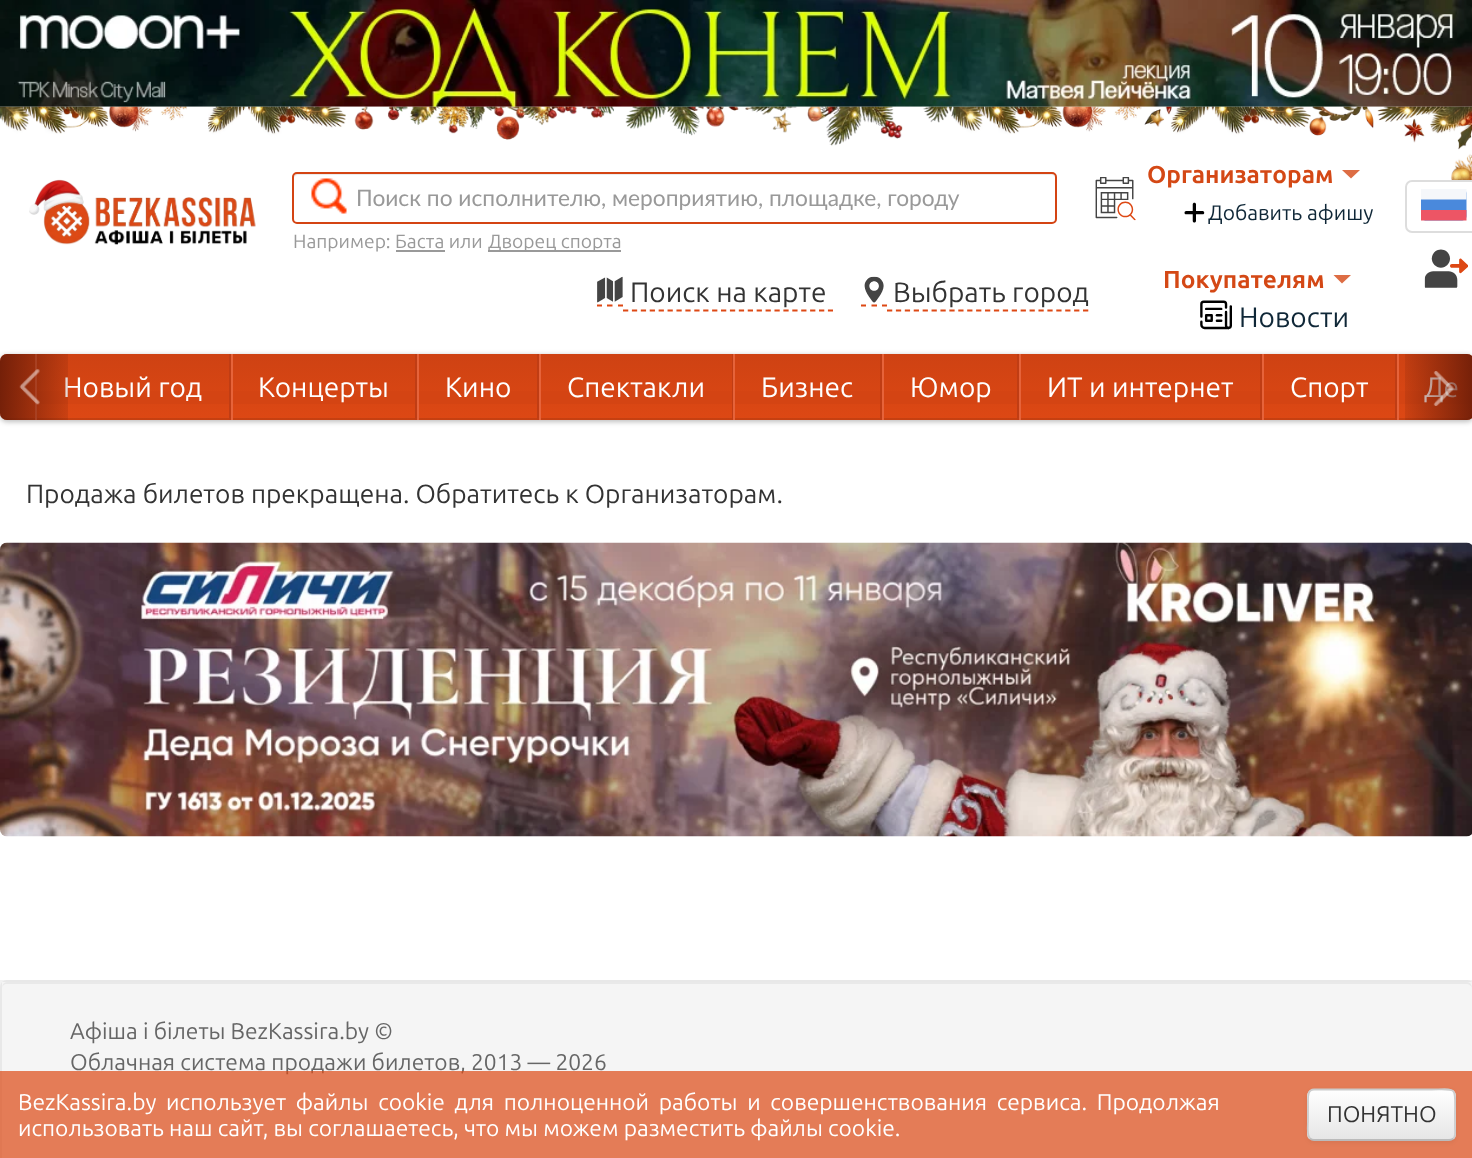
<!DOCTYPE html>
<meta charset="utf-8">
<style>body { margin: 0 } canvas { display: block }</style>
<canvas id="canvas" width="1472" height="1158"></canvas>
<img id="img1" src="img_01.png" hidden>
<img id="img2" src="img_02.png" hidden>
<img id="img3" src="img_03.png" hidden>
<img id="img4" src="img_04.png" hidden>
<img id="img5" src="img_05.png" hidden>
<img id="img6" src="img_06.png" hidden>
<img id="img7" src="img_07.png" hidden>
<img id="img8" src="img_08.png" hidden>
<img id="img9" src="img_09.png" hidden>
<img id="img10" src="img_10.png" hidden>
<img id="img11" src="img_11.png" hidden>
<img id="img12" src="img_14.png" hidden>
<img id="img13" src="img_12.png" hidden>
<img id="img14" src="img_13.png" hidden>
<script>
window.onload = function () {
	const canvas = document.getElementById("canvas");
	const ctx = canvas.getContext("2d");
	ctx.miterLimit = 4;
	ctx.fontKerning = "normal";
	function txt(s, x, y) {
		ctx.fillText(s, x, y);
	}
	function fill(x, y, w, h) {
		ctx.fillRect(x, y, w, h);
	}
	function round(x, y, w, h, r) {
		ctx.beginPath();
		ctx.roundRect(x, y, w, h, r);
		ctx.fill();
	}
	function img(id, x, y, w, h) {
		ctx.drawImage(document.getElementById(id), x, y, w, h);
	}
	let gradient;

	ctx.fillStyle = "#FFFFFF";
	fill(0, 0, 1472, 1158);
	img("img1", 0, 0, 1472, 107);
	img("img2", 0, 106, 1472, 89);
	img("img3", 29, 179, 227, 66);
	round(292, 172, 765, 52, 5);
	ctx.fillStyle = "#ECECEC";
	ctx.beginPath();
	ctx.moveTo(298, 175);
	ctx.lineTo(1052, 175);
	ctx.bezierCurveTo(1054, 175, 1055, 177, 1055, 178);
	ctx.lineTo(1055, 177);
	ctx.bezierCurveTo(1055, 175, 1053, 173, 1051, 173);
	ctx.lineTo(298, 173);
	ctx.bezierCurveTo(296, 173, 294, 175, 294, 177);
	ctx.lineTo(294, 178);
	ctx.bezierCurveTo(294, 177, 296, 175, 298, 175);
	ctx.closePath();
	ctx.fill();
	ctx.beginPath();
	ctx.roundRect(293, 173, 763, 50, 4);
	ctx.strokeStyle = "#D44413";
	ctx.lineWidth = 2;
	ctx.stroke();
	img("img4", 311, 178, 36, 36);
	img("img5", 1095, 177, 41, 44);
	ctx.fillStyle = "#999999";
	fill(396, 250, 49, 2);
	fill(488, 250, 133, 2);
	img("img6", 597, 276, 26, 27);
	ctx.beginPath();
	ctx.moveTo(597, 305.5);
	ctx.lineTo(602, 305.5);
	ctx.moveTo(607, 305.5);
	ctx.lineTo(612.5, 305.5);
	ctx.moveTo(618, 305.5);
	ctx.lineTo(623, 305.5);
	ctx.strokeStyle = "#DD4814";
	ctx.lineWidth = 1.8;
	ctx.stroke();
	ctx.beginPath();
	ctx.moveTo(623, 310.5);
	ctx.lineTo(833, 310.5);
	ctx.setLineDash([5.25, 3.66]);
	ctx.stroke();
	img("img7", 864, 276, 20, 27);
	ctx.beginPath();
	ctx.moveTo(861, 305.5);
	ctx.lineTo(866, 305.5);
	ctx.moveTo(871.5, 305.5);
	ctx.lineTo(877, 305.5);
	ctx.moveTo(882, 305.5);
	ctx.lineTo(887, 305.5);
	ctx.setLineDash([]);
	ctx.stroke();
	ctx.beginPath();
	ctx.moveTo(887, 310.5);
	ctx.lineTo(1088.5, 310.5);
	ctx.setLineDash([5.25, 3.66]);
	ctx.stroke();
	ctx.fillStyle = "#DD6D44";
	ctx.beginPath();
	ctx.moveTo(1342, 170);
	ctx.lineTo(1360, 170);
	ctx.lineTo(1351, 178.5);
	ctx.closePath();
	ctx.fill();
	img("img8", 1184, 202, 21, 21);
	ctx.beginPath();
	ctx.moveTo(1333.5, 275);
	ctx.lineTo(1351, 275);
	ctx.lineTo(1342, 283.5);
	ctx.closePath();
	ctx.fill();
	img("img9", 1200, 300, 32, 30);
	ctx.fillStyle = "#FFFFFF";
	ctx.beginPath();
	ctx.roundRect(1406, 181, 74, 51, 6);
	ctx.fill();
	ctx.strokeStyle = "#DDDDDD";
	ctx.lineWidth = 2;
	ctx.setLineDash([]);
	ctx.stroke();
	img("img10", 1421, 189, 46, 32);
	img("img11", 1424, 249, 44, 39);
	ctx.fillStyle = "rgba(0, 0, 0, 0.25)";
	ctx.filter = "blur(2.5px)";
	ctx.beginPath();
	ctx.roundRect(0, 355, 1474, 67, 7);
	ctx.fill();
	ctx.filter = "none";
	gradient = ctx.createLinearGradient(737, 353, 737, 420);
	gradient.addColorStop(0, "#CE4213");
	gradient.addColorStop(1, "#DD4814");
	ctx.fillStyle = gradient;
	round(0, 354, 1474, 66, 7);
	ctx.fillStyle = "rgba(0, 0, 0, 0.1)";
	ctx.beginPath();
	ctx.moveTo(0, 411);
	ctx.lineTo(0, 413);
	ctx.bezierCurveTo(0, 417, 3, 420, 7, 420);
	ctx.lineTo(1467, 420);
	ctx.bezierCurveTo(1471, 420, 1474, 417, 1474, 413);
	ctx.lineTo(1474, 411);
	ctx.bezierCurveTo(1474, 415, 1470, 418, 1466, 418);
	ctx.lineTo(7, 418);
	ctx.bezierCurveTo(3, 418, 0, 415, 0, 411);
	ctx.closePath();
	ctx.fill();
	ctx.fillStyle = "#D44413";
	fill(37, 391, 1435, 13);
	ctx.fillStyle = "#C03D14";
	fill(229, 354, 2, 66);
	ctx.fillStyle = "#E6633A";
	fill(35, 354, 2, 66);
	ctx.fillStyle = "#C03D14";
	fill(415, 354, 2, 66);
	ctx.fillStyle = "#E6633A";
	fill(231, 354, 2, 66);
	ctx.fillStyle = "#C03D14";
	fill(537, 354, 2, 66);
	ctx.fillStyle = "#E6633A";
	fill(417, 354, 2, 66);
	ctx.fillStyle = "#C03D14";
	fill(732, 354, 1, 66);
	ctx.fillStyle = "#E6633A";
	fill(539, 354, 2, 66);
	ctx.fillStyle = "#C03D14";
	fill(880, 354, 2, 66);
	ctx.fillStyle = "#E6633A";
	fill(733, 354, 2, 66);
	ctx.fillStyle = "#C03D14";
	fill(1017, 354, 2, 66);
	ctx.fillStyle = "#E6633A";
	fill(882, 354, 2, 66);
	ctx.fillStyle = "#C03D14";
	fill(1260, 354, 2, 66);
	ctx.fillStyle = "#E6633A";
	fill(1019, 354, 2, 66);
	ctx.fillStyle = "#C03D14";
	fill(1395, 354, 2, 66);
	ctx.fillStyle = "#E6633A";
	fill(1262, 354, 2, 66);
	fill(1397, 354, 2, 66);
	img("img12", 0, 542, 1472, 295);
	ctx.fillStyle = "#F5F5F5";
	round(0, 980, 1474, 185, 7);
	ctx.fillStyle = "#E9E9E9";
	ctx.beginPath();
	ctx.moveTo(7, 984);
	ctx.lineTo(1466, 984);
	ctx.bezierCurveTo(1469, 984, 1472, 986, 1472, 989);
	ctx.bezierCurveTo(1472, 986, 1471, 982, 1467, 982);
	ctx.lineTo(7, 982);
	ctx.bezierCurveTo(3, 982, 2, 986, 2, 989);
	ctx.bezierCurveTo(2, 986, 4, 984, 7, 984);
	ctx.closePath();
	ctx.fill();
	ctx.strokeStyle = "rgba(0, 0, 0, 0.05)";
	ctx.strokeRect(1, 981, 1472, 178);
	ctx.font = "22.75px Lato";
	ctx.fillStyle = "#999999";
	txt("Поиск по исполнителю, мероприятию, площадке, городу", 356, 206);
	ctx.font = "19.25px Ubuntu";
	txt("Например: Баста или", 293, 248);
	txt("Дворец спорта", 488, 248);
	ctx.font = "28px Ubuntu";
	ctx.fillStyle = "#333333";
	txt("Поиск на карте", 630, 302);
	txt("Выбрать город", 893, 302);
	ctx.font = "bold 24.5px Ubuntu";
	ctx.fillStyle = "#D44815";
	txt("Организаторам", 1147, 183);
	ctx.font = "21px Ubuntu";
	ctx.fillStyle = "#0F2737";
	txt("Добавить афишу", 1208, 220);
	ctx.font = "bold 24.5px Ubuntu";
	ctx.fillStyle = "#D44815";
	txt("Покупателям", 1163, 288);
	ctx.font = "28px Ubuntu";
	ctx.fillStyle = "#0F2737";
	txt("Новости", 1239, 327);
	ctx.fillStyle = "#FFFFFF";
	txt("Новый год", 63, 397);
	gradient = ctx.createLinearGradient(0, 387, 82, 387);
	gradient.addColorStop(0, "rgba(101, 26, 7, 0.86)");
	gradient.addColorStop(1, "rgba(101, 26, 7, 0)");
	ctx.fillStyle = gradient;
	ctx.beginPath();
	ctx.roundRect(0, 354, 68, 66, [7, 0, 0, 7]);
	ctx.fill();
	img("img13", 19, 369, 21, 36);
	ctx.fillStyle = "#FFFFFF";
	txt("Концерты", 258, 397);
	txt("Кино", 445, 397);
	txt("Спектакли", 567, 397);
	txt("Бизнес", 761, 397);
	txt("Юмор", 910, 397);
	txt("ИТ и интернет", 1047, 397);
	txt("Спорт", 1290, 397);
	txt("Де", 1424, 397);
	gradient = ctx.createLinearGradient(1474, 388, 1392, 388);
	gradient.addColorStop(0, "rgba(101, 26, 7, 0.86)");
	gradient.addColorStop(1, "rgba(101, 26, 7, 0)");
	ctx.fillStyle = gradient;
	ctx.beginPath();
	ctx.moveTo(1405, 354);
	ctx.lineTo(1467, 354);
	ctx.bezierCurveTo(1471, 354, 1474, 357, 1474, 361);
	ctx.lineTo(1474, 413);
	ctx.bezierCurveTo(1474, 417, 1471, 420, 1467, 420);
	ctx.lineTo(1405, 420);
	ctx.closePath();
	ctx.fill();
	img("img14", 1433, 371, 21, 35);
	ctx.font = "26.25px Ubuntu";
	ctx.fillStyle = "#333333";
	txt("Продажа билетов прекращена. Обратитесь к Организаторам.", 26, 503);
	ctx.font = "22.75px Ubuntu";
	ctx.fillStyle = "#666666";
	txt("Афіша і білеты BezKassira.by ©", 70, 1039);
	txt("Облачная система продажи билетов, 2013 — 2026", 70, 1070);
	ctx.fillStyle = "rgba(221, 72, 20, 0.7)";
	fill(0, 1071, 1472, 87);
	ctx.wordSpacing = "4.5px";
	ctx.fillStyle = "#FFFFFF";
	txt("BezKassira.by использует файлы cookie для полноценной работы и совершенствования сервиса. Продолжая", 18, 1110);
	ctx.wordSpacing = "0px";
	txt("использовать наш сайт, вы соглашаетесь, что мы можем разместить файлы cookie.", 18, 1136);
	ctx.fillStyle = "rgba(0, 0, 0, 0.05)";
	ctx.filter = "blur(2px)";
	ctx.beginPath();
	ctx.roundRect(1307, 1090, 149, 53, 7);
	ctx.fill();
	ctx.filter = "none";
	ctx.save();
	ctx.beginPath();
	ctx.roundRect(1307, 1089, 149, 52, 7);
	ctx.clip();
	gradient = ctx.createLinearGradient(1382, 1090, 1382, 1139);
	gradient.addColorStop(0, "#FFFFFF");
	gradient.addColorStop(1, "#E6E6E6");
	ctx.fillStyle = gradient;
	fill(1307, 1090, 149, 49);
	ctx.restore();
	ctx.beginPath();
	ctx.moveTo(1453.5, 1138.5);
	ctx.bezierCurveTo(1452, 1139.5, 1450.5, 1140, 1449, 1140);
	ctx.lineTo(1314, 1140);
	ctx.bezierCurveTo(1312.5, 1140, 1311, 1139.5, 1310, 1138.5);
	ctx.strokeStyle = "#BBBBBB";
	ctx.lineWidth = 1.8;
	ctx.stroke();
	ctx.beginPath();
	ctx.moveTo(1310, 1138.5);
	ctx.bezierCurveTo(1306.5, 1135, 1308, 1125, 1308, 1121);
	ctx.lineTo(1308, 1102);
	ctx.bezierCurveTo(1308, 1097, 1307.5, 1089.5, 1314, 1089.5);
	ctx.lineTo(1426.5, 1089.5);
	ctx.bezierCurveTo(1459, 1089.5, 1455, 1084.5, 1455, 1115);
	ctx.lineTo(1455, 1127.5);
	ctx.bezierCurveTo(1455, 1131, 1456, 1135.5, 1453.5, 1138.5);
	ctx.strokeStyle = "#CCCCCC";
	ctx.stroke();
	ctx.fillStyle = "#333333";
	txt("ПОНЯТНО", 1327, 1122);
};
</script>
